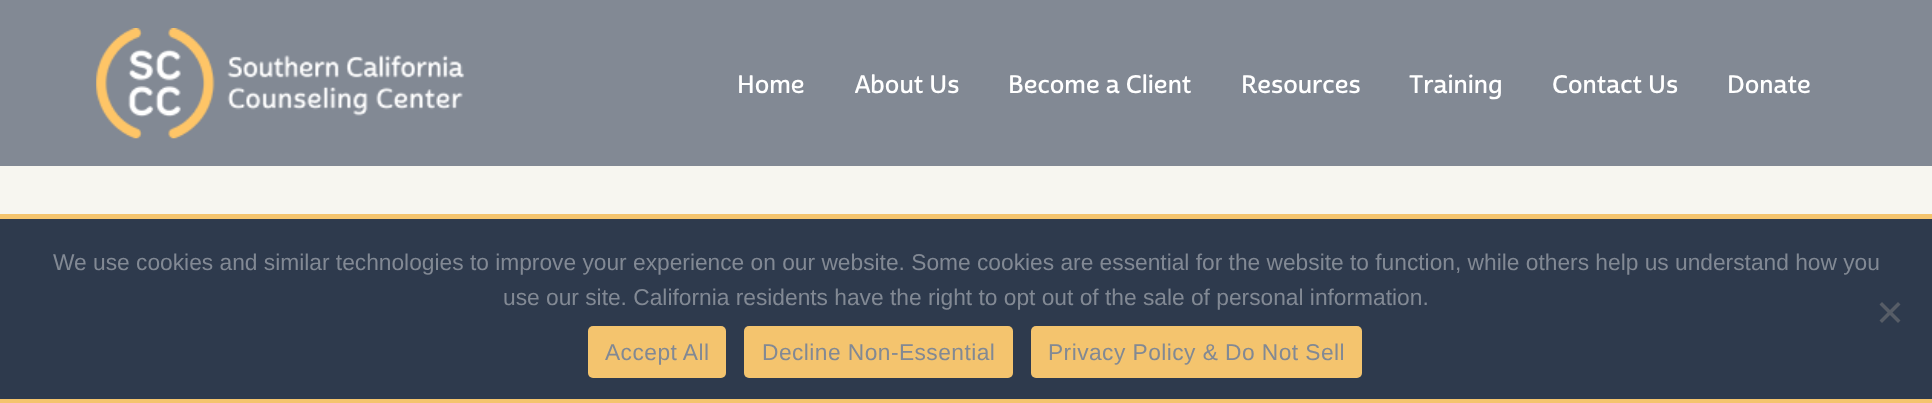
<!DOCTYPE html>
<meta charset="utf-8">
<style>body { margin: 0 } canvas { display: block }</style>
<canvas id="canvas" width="1932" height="403"></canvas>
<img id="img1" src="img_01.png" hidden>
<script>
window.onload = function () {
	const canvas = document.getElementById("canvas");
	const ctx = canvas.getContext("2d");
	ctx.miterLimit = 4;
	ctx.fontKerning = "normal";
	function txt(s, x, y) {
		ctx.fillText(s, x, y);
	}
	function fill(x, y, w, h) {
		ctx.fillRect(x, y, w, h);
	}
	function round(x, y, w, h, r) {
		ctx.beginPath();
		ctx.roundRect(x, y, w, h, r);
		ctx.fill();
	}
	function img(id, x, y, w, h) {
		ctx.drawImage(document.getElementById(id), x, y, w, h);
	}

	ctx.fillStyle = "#F7F6F0";
	fill(0, 0, 1932, 403);
	ctx.fillStyle = "#828994";
	fill(0, 0, 1932, 166);
	img("img1", 96, 28, 369, 111);
	ctx.fillStyle = "#2E3A4D";
	fill(0, 219, 1932, 180);
	ctx.fillStyle = "#F4C46E";
	fill(0, 214, 1932, 5);
	ctx.fillStyle = "#575D67";
	ctx.beginPath();
	ctx.moveTo(1898, 302);
	ctx.lineTo(1900.5, 304.5);
	ctx.lineTo(1882, 323);
	ctx.lineTo(1879.5, 320.5);
	ctx.closePath();
	ctx.fill();
	ctx.beginPath();
	ctx.moveTo(1879.5, 304.5);
	ctx.lineTo(1882, 302);
	ctx.lineTo(1900.5, 320.5);
	ctx.lineTo(1898, 323);
	ctx.closePath();
	ctx.fill();
	ctx.fillStyle = "#F4C46E";
	round(588, 326, 138, 52, 5);
	round(744, 326, 269, 52, 5);
	round(1031, 326, 331, 52, 5);
	fill(0, 399, 1932, 4);
	ctx.font = "24.5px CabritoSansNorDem";
	ctx.fillStyle = "#FFFFFF";
	txt("Home", 737, 93);
	txt("About Us", 854, 93);
	txt("Become a Client", 1008, 93);
	txt("Resources", 1241, 93);
	txt("Training", 1409, 93);
	txt("Contact Us", 1552, 93);
	txt("Donate", 1727, 93);
	ctx.font = "22.75px Liberation Sans";
	ctx.fillStyle = "#828994";
	txt("We use cookies and similar technologies to improve your experience on our website. Some cookies are essential for the website to function, while others help us understand how you", 53, 270);
	txt("use our site. California residents have the right to opt out of the sale of personal information.", 503, 305);
	ctx.letterSpacing = "0.45px";
	txt("Accept All", 605, 360);
	txt("Decline Non-Essential", 762, 360);
	txt("Privacy Policy & Do Not Sell", 1048, 360);
};
</script>
